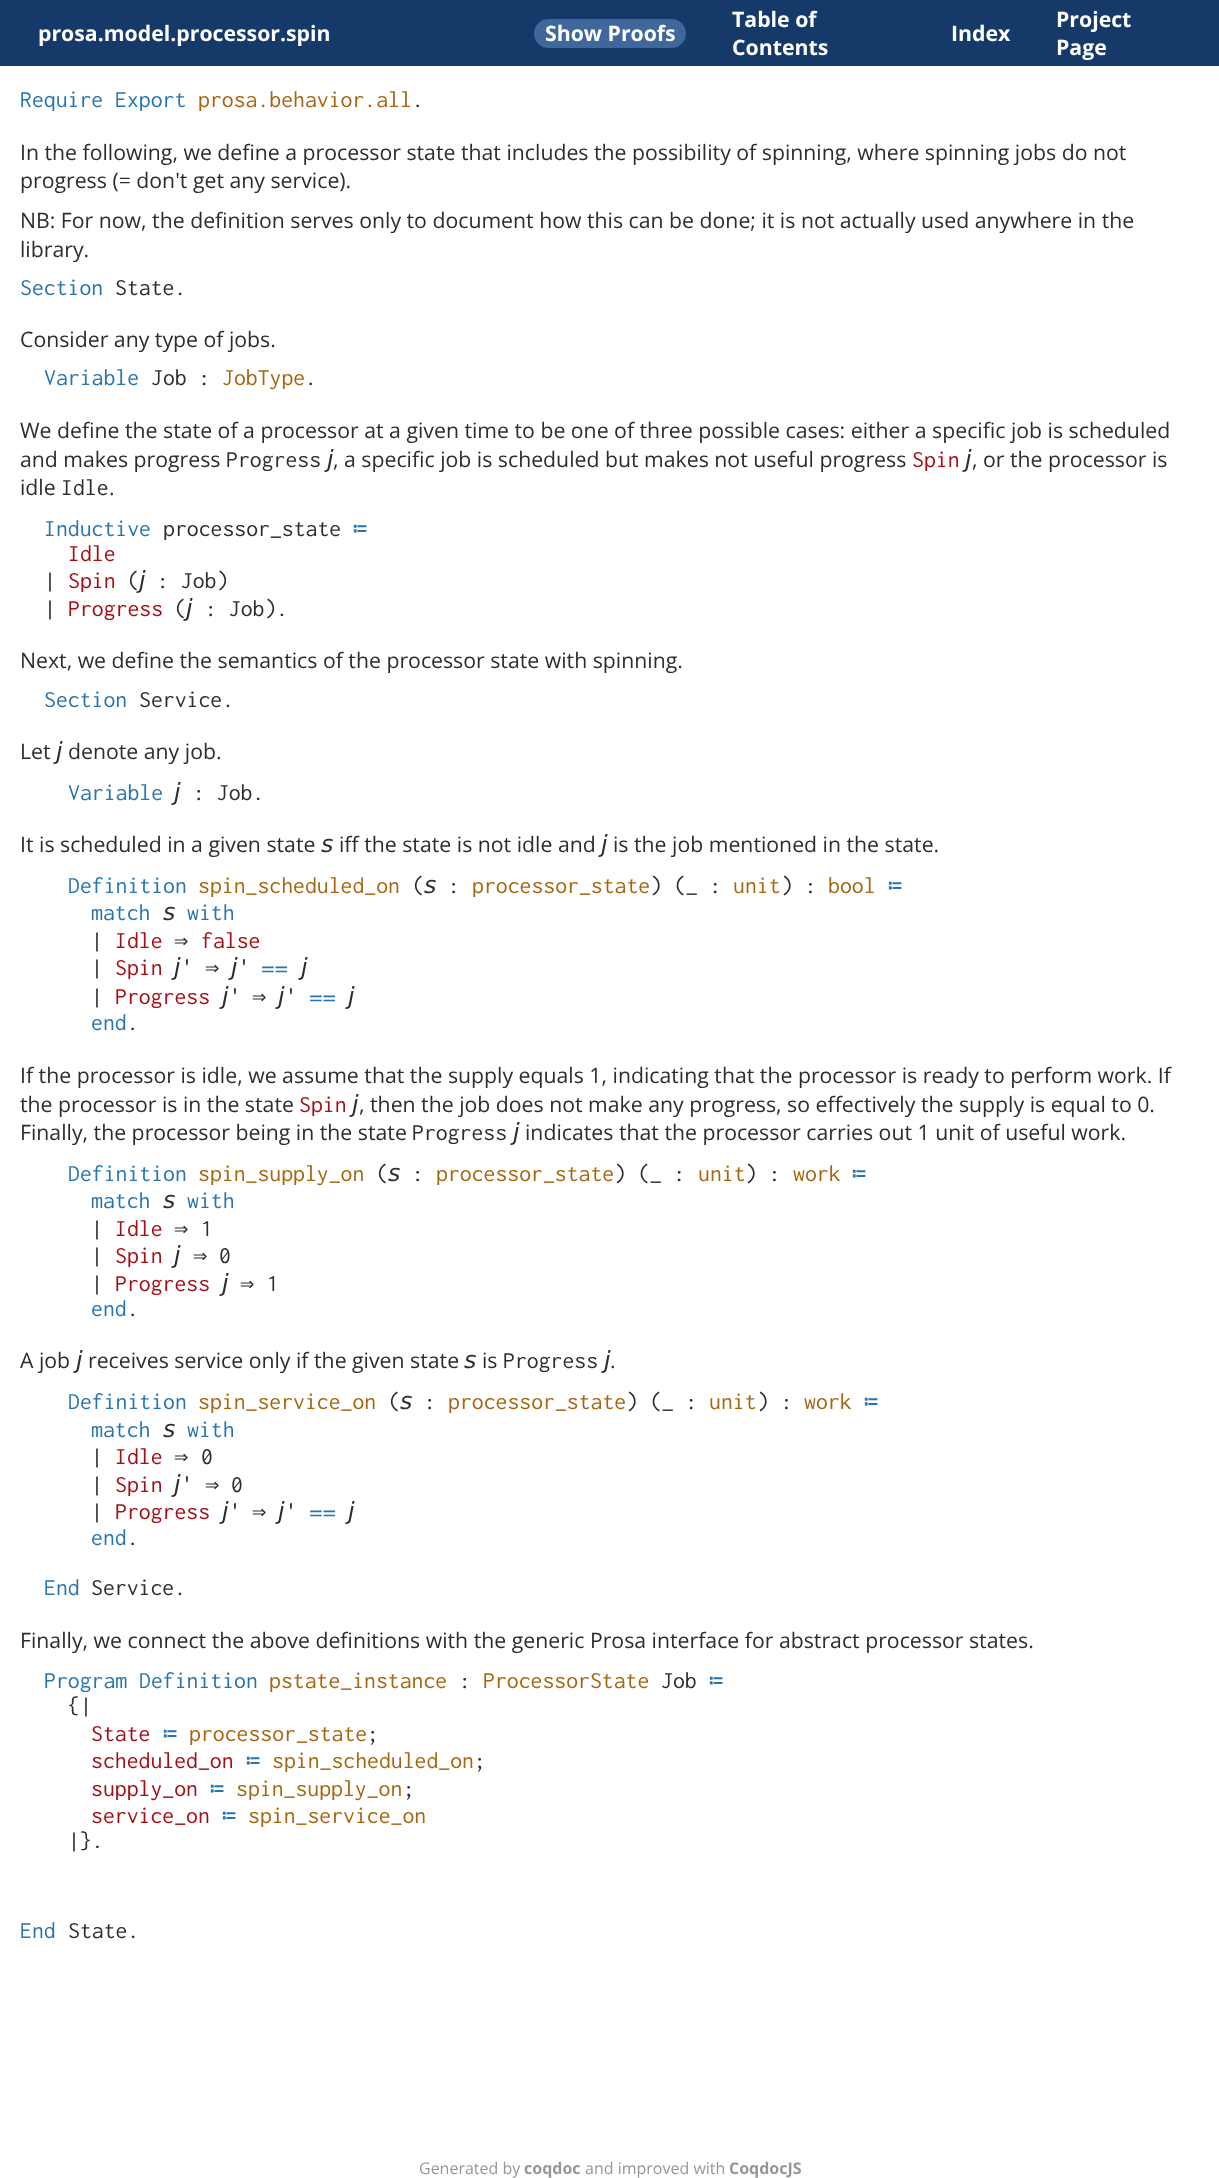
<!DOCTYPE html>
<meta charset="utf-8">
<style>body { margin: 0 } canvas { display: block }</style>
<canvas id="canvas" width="1219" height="2178"></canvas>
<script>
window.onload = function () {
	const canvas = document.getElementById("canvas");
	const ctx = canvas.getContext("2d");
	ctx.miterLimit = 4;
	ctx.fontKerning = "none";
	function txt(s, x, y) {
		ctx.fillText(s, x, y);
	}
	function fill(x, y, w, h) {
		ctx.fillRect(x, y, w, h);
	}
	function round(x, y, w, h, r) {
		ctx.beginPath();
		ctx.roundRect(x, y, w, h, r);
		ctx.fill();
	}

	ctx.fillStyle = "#FFFFFF";
	fill(0, 0, 1219, 2178);
	ctx.fillStyle = "#153969";
	fill(0, 0, 1219, 66);
	ctx.fillStyle = "#3F679C";
	round(534, 19, 152, 29, 14.5);
	ctx.font = "bold 21.25px Open Sans";
	ctx.fillStyle = "#FFFFFF";
	txt("prosa.model.processor.spin", 38, 41);
	txt("Show Proofs", 545, 41);
	txt("Table of", 732, 27);
	txt("Contents", 732, 55);
	txt("Index", 951, 41);
	txt("Project", 1056, 27);
	txt("Page", 1056, 55);
	ctx.font = "23.75px Inconsolata";
	ctx.fillStyle = "#2874AE";
	txt("Require Export", 20, 107);
	ctx.fillStyle = "#A6650F";
	txt("prosa.behavior.all", 198, 107);
	ctx.fillStyle = "#2D2D2D";
	txt(".", 412, 107);
	ctx.font = "21.25px Open Sans";
	txt("In the following, we define a processor state that includes the possibility of spinning, where spinning jobs do not", 20, 160);
	txt("progress (= don't get any service).", 20, 188);
	txt("NB: For now, the definition serves only to document how this can be done; it is not actually used anywhere in the", 20, 228);
	txt("library.", 20, 257);
	ctx.font = "23.75px Inconsolata";
	ctx.fillStyle = "#2874AE";
	txt("Section", 20, 295);
	ctx.fillStyle = "#2D2D2D";
	txt("State.", 115, 295);
	ctx.font = "21.25px Open Sans";
	txt("Consider any type of jobs.", 20, 347);
	ctx.font = "23.75px Inconsolata";
	ctx.fillStyle = "#2874AE";
	txt("Variable", 44, 385);
	ctx.fillStyle = "#2D2D2D";
	txt("Job :", 151, 385);
	ctx.fillStyle = "#A6650F";
	txt("JobType", 222, 385);
	ctx.fillStyle = "#2D2D2D";
	txt(".", 305, 385);
	ctx.font = "21.25px Open Sans";
	txt("We define the state of a processor at a given time to be one of three possible cases: either a specific job is scheduled", 20, 438);
	txt("and makes progress", 20, 467);
	ctx.font = "23.75px Inconsolata";
	txt("Progress", 226, 467);
	ctx.font = "italic 23.75px DejaVu Sans";
	txt("𝘫", 327, 467);
	ctx.font = "21.25px Open Sans";
	txt(", a specific job is scheduled but makes not useful progress", 333, 467);
	ctx.font = "23.75px Inconsolata";
	ctx.fillStyle = "#A30E16";
	txt("Spin", 912, 467);
	ctx.font = "italic 23.75px DejaVu Sans";
	ctx.fillStyle = "#2D2D2D";
	txt("𝘫", 965, 467);
	ctx.font = "21.25px Open Sans";
	txt(", or the processor is", 972, 467);
	txt("idle", 20, 495);
	ctx.font = "23.75px Inconsolata";
	txt("Idle", 61, 495);
	ctx.font = "21.25px Open Sans";
	txt(".", 109, 495);
	ctx.font = "23.75px Inconsolata";
	ctx.fillStyle = "#2874AE";
	txt("Inductive", 44, 536);
	ctx.fillStyle = "#2D2D2D";
	txt("processor_state", 163, 536);
	ctx.font = "23.75px DejaVu Sans Mono";
	ctx.fillStyle = "#2874AE";
	txt("≔", 353, 536);
	ctx.font = "23.75px Inconsolata";
	ctx.fillStyle = "#A30E16";
	txt("Idle", 68, 561);
	ctx.fillStyle = "#2D2D2D";
	txt("|", 44, 588);
	ctx.fillStyle = "#A30E16";
	txt("Spin", 68, 588);
	ctx.fillStyle = "#2D2D2D";
	txt("(", 127, 588);
	ctx.font = "italic 23.75px DejaVu Sans";
	txt("𝘫", 139, 588);
	ctx.font = "23.75px Inconsolata";
	txt(": Job)", 157, 588);
	txt("|", 44, 616);
	ctx.fillStyle = "#A30E16";
	txt("Progress", 68, 616);
	ctx.fillStyle = "#2D2D2D";
	txt("(", 174, 616);
	ctx.font = "italic 23.75px DejaVu Sans";
	txt("𝘫", 186, 616);
	ctx.font = "23.75px Inconsolata";
	txt(": Job).", 205, 616);
	ctx.font = "21.25px Open Sans";
	txt("Next, we define the semantics of the processor state with spinning.", 20, 668);
	ctx.font = "23.75px Inconsolata";
	ctx.fillStyle = "#2874AE";
	txt("Section", 44, 707);
	ctx.fillStyle = "#2D2D2D";
	txt("Service.", 139, 707);
	ctx.font = "21.25px Open Sans";
	txt("Let", 20, 759);
	ctx.font = "italic 23.75px DejaVu Sans";
	txt("𝘫", 56, 759);
	ctx.font = "21.25px Open Sans";
	txt("denote any job.", 68, 759);
	ctx.font = "23.75px Inconsolata";
	ctx.fillStyle = "#2874AE";
	txt("Variable", 68, 800);
	ctx.font = "italic 23.75px DejaVu Sans";
	ctx.fillStyle = "#2D2D2D";
	txt("𝘫", 174, 800);
	ctx.font = "23.75px Inconsolata";
	txt(": Job.", 193, 800);
	ctx.font = "21.25px Open Sans";
	txt("It is scheduled in a given state", 20, 852);
	ctx.font = "italic 23.75px DejaVu Sans";
	txt("𝘴", 321, 852);
	ctx.font = "21.25px Open Sans";
	txt("iff the state is not idle and", 339, 852);
	ctx.font = "italic 23.75px DejaVu Sans";
	txt("𝘫", 601, 852);
	ctx.font = "21.25px Open Sans";
	txt("is the job mentioned in the state.", 613, 852);
	ctx.font = "23.75px Inconsolata";
	ctx.fillStyle = "#2874AE";
	txt("Definition", 68, 893);
	ctx.fillStyle = "#A6650F";
	txt("spin_scheduled_on", 198, 893);
	ctx.fillStyle = "#2D2D2D";
	txt("(", 412, 893);
	ctx.font = "italic 23.75px DejaVu Sans";
	txt("𝘴", 424, 893);
	ctx.font = "23.75px Inconsolata";
	txt(":", 448, 893);
	ctx.fillStyle = "#A6650F";
	txt("processor_state", 472, 893);
	ctx.fillStyle = "#2D2D2D";
	txt(") (_ :", 650, 893);
	ctx.fillStyle = "#A6650F";
	txt("unit", 733, 893);
	ctx.fillStyle = "#2D2D2D";
	txt(") :", 781, 893);
	ctx.fillStyle = "#A6650F";
	txt("bool", 828, 893);
	ctx.font = "23.75px DejaVu Sans Mono";
	ctx.fillStyle = "#2874AE";
	txt("≔", 888, 893);
	ctx.font = "23.75px Inconsolata";
	txt("match", 91, 920);
	ctx.font = "italic 23.75px DejaVu Sans";
	ctx.fillStyle = "#2D2D2D";
	txt("𝘴", 163, 920);
	ctx.font = "23.75px Inconsolata";
	ctx.fillStyle = "#2874AE";
	txt("with", 187, 920);
	ctx.fillStyle = "#2D2D2D";
	txt("|", 91, 948);
	ctx.fillStyle = "#A30E16";
	txt("Idle", 115, 948);
	ctx.font = "23.75px DejaVu Sans Mono";
	ctx.fillStyle = "#2D2D2D";
	txt("⇒", 174, 948);
	ctx.font = "23.75px Inconsolata";
	ctx.fillStyle = "#A30E16";
	txt("false", 201, 948);
	ctx.fillStyle = "#2D2D2D";
	txt("|", 91, 975);
	ctx.fillStyle = "#A30E16";
	txt("Spin", 115, 975);
	ctx.font = "italic 23.75px DejaVu Sans";
	ctx.fillStyle = "#2D2D2D";
	txt("𝘫", 174, 975);
	ctx.font = "23.75px Inconsolata";
	txt("'", 181, 975);
	ctx.font = "italic 23.75px DejaVu Sans";
	txt("𝘫", 231, 975);
	ctx.font = "23.75px Inconsolata";
	txt("'", 238, 975);
	ctx.font = "italic 23.75px DejaVu Sans";
	txt("𝘫", 301, 975);
	ctx.font = "23.75px DejaVu Sans Mono";
	txt("⇒", 205, 975);
	ctx.font = "23.75px FreeSans";
	ctx.fillStyle = "#2874AE";
	txt("⩵", 261, 975);
	ctx.font = "23.75px Inconsolata";
	ctx.fillStyle = "#2D2D2D";
	txt("|", 91, 1004);
	ctx.fillStyle = "#A30E16";
	txt("Progress", 115, 1004);
	ctx.font = "italic 23.75px DejaVu Sans";
	ctx.fillStyle = "#2D2D2D";
	txt("𝘫", 222, 1004);
	ctx.font = "23.75px Inconsolata";
	txt("'", 229, 1004);
	ctx.font = "23.75px DejaVu Sans Mono";
	txt("⇒", 252, 1004);
	ctx.font = "italic 23.75px DejaVu Sans";
	txt("𝘫", 278, 1004);
	ctx.font = "23.75px Inconsolata";
	txt("'", 285, 1004);
	ctx.font = "23.75px FreeSans";
	ctx.fillStyle = "#2874AE";
	txt("⩵", 309, 1004);
	ctx.font = "italic 23.75px DejaVu Sans";
	ctx.fillStyle = "#2D2D2D";
	txt("𝘫", 348, 1004);
	ctx.font = "23.75px Inconsolata";
	ctx.fillStyle = "#2874AE";
	txt("end", 91, 1030);
	ctx.fillStyle = "#2D2D2D";
	txt(".", 127, 1030);
	ctx.font = "21.25px Open Sans";
	txt("If the processor is idle, we assume that the supply equals 1, indicating that the processor is ready to perform work. If", 20, 1083);
	txt("the processor is in the state", 20, 1112);
	ctx.font = "23.75px Inconsolata";
	ctx.fillStyle = "#A30E16";
	txt("Spin", 299, 1112);
	ctx.font = "italic 23.75px DejaVu Sans";
	ctx.fillStyle = "#2D2D2D";
	txt("𝘫", 352, 1112);
	ctx.font = "21.25px Open Sans";
	txt(", then the job does not make any progress, so effectively the supply is equal to 0.", 359, 1112);
	txt("Finally, the processor being in the state", 20, 1140);
	ctx.font = "23.75px Inconsolata";
	txt("Progress", 412, 1140);
	ctx.font = "italic 23.75px DejaVu Sans";
	txt("𝘫", 513, 1140);
	ctx.font = "21.25px Open Sans";
	txt("indicates that the processor carries out 1 unit of useful work.", 525, 1140);
	ctx.font = "23.75px Inconsolata";
	ctx.fillStyle = "#2874AE";
	txt("Definition", 68, 1181);
	ctx.fillStyle = "#A6650F";
	txt("spin_supply_on", 198, 1181);
	ctx.fillStyle = "#2D2D2D";
	txt("(", 376, 1181);
	ctx.font = "italic 23.75px DejaVu Sans";
	txt("𝘴", 388, 1181);
	ctx.font = "23.75px Inconsolata";
	txt(":", 412, 1181);
	ctx.fillStyle = "#A6650F";
	txt("processor_state", 436, 1181);
	ctx.fillStyle = "#2D2D2D";
	txt(") (_ :", 614, 1181);
	ctx.fillStyle = "#A6650F";
	txt("unit", 698, 1181);
	ctx.fillStyle = "#2D2D2D";
	txt(") :", 745, 1181);
	ctx.fillStyle = "#A6650F";
	txt("work", 793, 1181);
	ctx.font = "23.75px DejaVu Sans Mono";
	ctx.fillStyle = "#2874AE";
	txt("≔", 852, 1181);
	ctx.font = "23.75px Inconsolata";
	txt("match", 91, 1208);
	ctx.font = "italic 23.75px DejaVu Sans";
	ctx.fillStyle = "#2D2D2D";
	txt("𝘴", 163, 1208);
	ctx.font = "23.75px Inconsolata";
	ctx.fillStyle = "#2874AE";
	txt("with", 187, 1208);
	ctx.fillStyle = "#2D2D2D";
	txt("|", 91, 1236);
	ctx.fillStyle = "#A30E16";
	txt("Idle", 115, 1236);
	ctx.font = "23.75px DejaVu Sans Mono";
	ctx.fillStyle = "#2D2D2D";
	txt("⇒", 174, 1236);
	ctx.font = "23.75px Inconsolata";
	txt("1", 201, 1236);
	txt("|", 91, 1263);
	ctx.fillStyle = "#A30E16";
	txt("Spin", 115, 1263);
	ctx.font = "italic 23.75px DejaVu Sans";
	ctx.fillStyle = "#2D2D2D";
	txt("𝘫", 174, 1263);
	ctx.font = "23.75px DejaVu Sans Mono";
	txt("⇒", 193, 1263);
	ctx.font = "23.75px Inconsolata";
	txt("0", 219, 1263);
	txt("|", 91, 1291);
	ctx.fillStyle = "#A30E16";
	txt("Progress", 115, 1291);
	ctx.font = "italic 23.75px DejaVu Sans";
	ctx.fillStyle = "#2D2D2D";
	txt("𝘫", 222, 1291);
	ctx.font = "23.75px DejaVu Sans Mono";
	txt("⇒", 240, 1291);
	ctx.font = "23.75px Inconsolata";
	txt("1", 267, 1291);
	ctx.fillStyle = "#2874AE";
	txt("end", 91, 1316);
	ctx.fillStyle = "#2D2D2D";
	txt(".", 127, 1316);
	ctx.font = "21.25px Open Sans";
	txt("A job", 20, 1368);
	ctx.font = "italic 23.75px DejaVu Sans";
	txt("𝘫", 76, 1368);
	ctx.font = "21.25px Open Sans";
	txt("receives service only if the given state", 88, 1368);
	ctx.font = "italic 23.75px DejaVu Sans";
	txt("𝘴", 464, 1368);
	ctx.font = "21.25px Open Sans";
	txt("is", 482, 1368);
	ctx.font = "23.75px Inconsolata";
	txt("Progress", 503, 1368);
	ctx.font = "italic 23.75px DejaVu Sans";
	txt("𝘫", 604, 1368);
	ctx.font = "21.25px Open Sans";
	txt(".", 610, 1368);
	ctx.font = "23.75px Inconsolata";
	ctx.fillStyle = "#2874AE";
	txt("Definition", 68, 1409);
	ctx.fillStyle = "#A6650F";
	txt("spin_service_on", 198, 1409);
	ctx.fillStyle = "#2D2D2D";
	txt("(", 388, 1409);
	ctx.font = "italic 23.75px DejaVu Sans";
	txt("𝘴", 400, 1409);
	ctx.font = "23.75px Inconsolata";
	txt(":", 424, 1409);
	ctx.fillStyle = "#A6650F";
	txt("processor_state", 448, 1409);
	ctx.fillStyle = "#2D2D2D";
	txt(") (_ :", 626, 1409);
	ctx.fillStyle = "#A6650F";
	txt("unit", 709, 1409);
	ctx.fillStyle = "#2D2D2D";
	txt(") :", 757, 1409);
	ctx.fillStyle = "#A6650F";
	txt("work", 804, 1409);
	ctx.font = "23.75px DejaVu Sans Mono";
	ctx.fillStyle = "#2874AE";
	txt("≔", 864, 1409);
	ctx.font = "23.75px Inconsolata";
	txt("match", 91, 1437);
	ctx.font = "italic 23.75px DejaVu Sans";
	ctx.fillStyle = "#2D2D2D";
	txt("𝘴", 163, 1437);
	ctx.font = "23.75px Inconsolata";
	ctx.fillStyle = "#2874AE";
	txt("with", 187, 1437);
	ctx.fillStyle = "#2D2D2D";
	txt("|", 91, 1464);
	ctx.fillStyle = "#A30E16";
	txt("Idle", 115, 1464);
	ctx.font = "23.75px DejaVu Sans Mono";
	ctx.fillStyle = "#2D2D2D";
	txt("⇒", 174, 1464);
	ctx.font = "23.75px Inconsolata";
	txt("0", 201, 1464);
	txt("|", 91, 1492);
	ctx.fillStyle = "#A30E16";
	txt("Spin", 115, 1492);
	ctx.font = "italic 23.75px DejaVu Sans";
	ctx.fillStyle = "#2D2D2D";
	txt("𝘫", 174, 1492);
	ctx.font = "23.75px Inconsolata";
	txt("'", 181, 1492);
	ctx.font = "23.75px DejaVu Sans Mono";
	txt("⇒", 205, 1492);
	ctx.font = "23.75px Inconsolata";
	txt("0", 231, 1492);
	txt("|", 91, 1519);
	ctx.fillStyle = "#A30E16";
	txt("Progress", 115, 1519);
	ctx.font = "italic 23.75px DejaVu Sans";
	ctx.fillStyle = "#2D2D2D";
	txt("𝘫", 222, 1519);
	ctx.font = "23.75px Inconsolata";
	txt("'", 229, 1519);
	ctx.font = "23.75px DejaVu Sans Mono";
	txt("⇒", 252, 1519);
	ctx.font = "italic 23.75px DejaVu Sans";
	txt("𝘫", 278, 1519);
	ctx.font = "23.75px Inconsolata";
	txt("'", 285, 1519);
	ctx.font = "23.75px FreeSans";
	ctx.fillStyle = "#2874AE";
	txt("⩵", 309, 1519);
	ctx.font = "italic 23.75px DejaVu Sans";
	ctx.fillStyle = "#2D2D2D";
	txt("𝘫", 348, 1519);
	ctx.font = "23.75px Inconsolata";
	ctx.fillStyle = "#2874AE";
	txt("end", 91, 1545);
	ctx.fillStyle = "#2D2D2D";
	txt(".", 127, 1545);
	ctx.fillStyle = "#2874AE";
	txt("End", 44, 1595);
	ctx.fillStyle = "#2D2D2D";
	txt("Service.", 91, 1595);
	ctx.font = "21.25px Open Sans";
	txt("Finally, we connect the above definitions with the generic Prosa interface for abstract processor states.", 20, 1648);
	ctx.font = "23.75px Inconsolata";
	ctx.fillStyle = "#2874AE";
	txt("Program Definition", 44, 1688);
	ctx.fillStyle = "#A6650F";
	txt("pstate_instance", 269, 1688);
	ctx.fillStyle = "#2D2D2D";
	txt(":", 459, 1688);
	ctx.fillStyle = "#A6650F";
	txt("ProcessorState", 483, 1688);
	ctx.fillStyle = "#2D2D2D";
	txt("Job", 661, 1688);
	ctx.font = "23.75px DejaVu Sans Mono";
	ctx.fillStyle = "#2874AE";
	txt("≔", 709, 1688);
	ctx.font = "23.75px Inconsolata";
	ctx.fillStyle = "#2D2D2D";
	txt("{|", 68, 1713);
	ctx.fillStyle = "#A30E16";
	txt("State", 91, 1741);
	ctx.font = "23.75px DejaVu Sans Mono";
	ctx.fillStyle = "#2874AE";
	txt("≔", 163, 1741);
	ctx.font = "23.75px Inconsolata";
	ctx.fillStyle = "#A6650F";
	txt("processor_state", 189, 1741);
	ctx.fillStyle = "#2D2D2D";
	txt(";", 367, 1741);
	ctx.fillStyle = "#A30E16";
	txt("scheduled_on", 91, 1768);
	ctx.font = "23.75px DejaVu Sans Mono";
	ctx.fillStyle = "#2874AE";
	txt("≔", 246, 1768);
	ctx.font = "23.75px Inconsolata";
	ctx.fillStyle = "#A6650F";
	txt("spin_scheduled_on", 272, 1768);
	ctx.fillStyle = "#2D2D2D";
	txt(";", 474, 1768);
	ctx.fillStyle = "#A30E16";
	txt("supply_on", 91, 1796);
	ctx.font = "23.75px DejaVu Sans Mono";
	ctx.fillStyle = "#2874AE";
	txt("≔", 210, 1796);
	ctx.font = "23.75px Inconsolata";
	ctx.fillStyle = "#A6650F";
	txt("spin_supply_on", 236, 1796);
	ctx.fillStyle = "#2D2D2D";
	txt(";", 403, 1796);
	ctx.fillStyle = "#A30E16";
	txt("service_on", 91, 1823);
	ctx.font = "23.75px DejaVu Sans Mono";
	ctx.fillStyle = "#2874AE";
	txt("≔", 222, 1823);
	ctx.font = "23.75px Inconsolata";
	ctx.fillStyle = "#A6650F";
	txt("spin_service_on", 248, 1823);
	ctx.fillStyle = "#2D2D2D";
	txt("|}.", 68, 1848);
	ctx.fillStyle = "#2874AE";
	txt("End", 20, 1938);
	ctx.fillStyle = "#2D2D2D";
	txt("State.", 68, 1938);
	ctx.font = "16px Open Sans";
	ctx.fillStyle = "#969696";
	txt("Generated by", 419, 2174);
	ctx.font = "bold 16px Open Sans";
	txt("coqdoc", 524, 2174);
	ctx.font = "16px Open Sans";
	txt("and improved with", 585, 2174);
	ctx.font = "bold 16px Open Sans";
	txt("CoqdocJS", 729, 2174);
};
</script>
